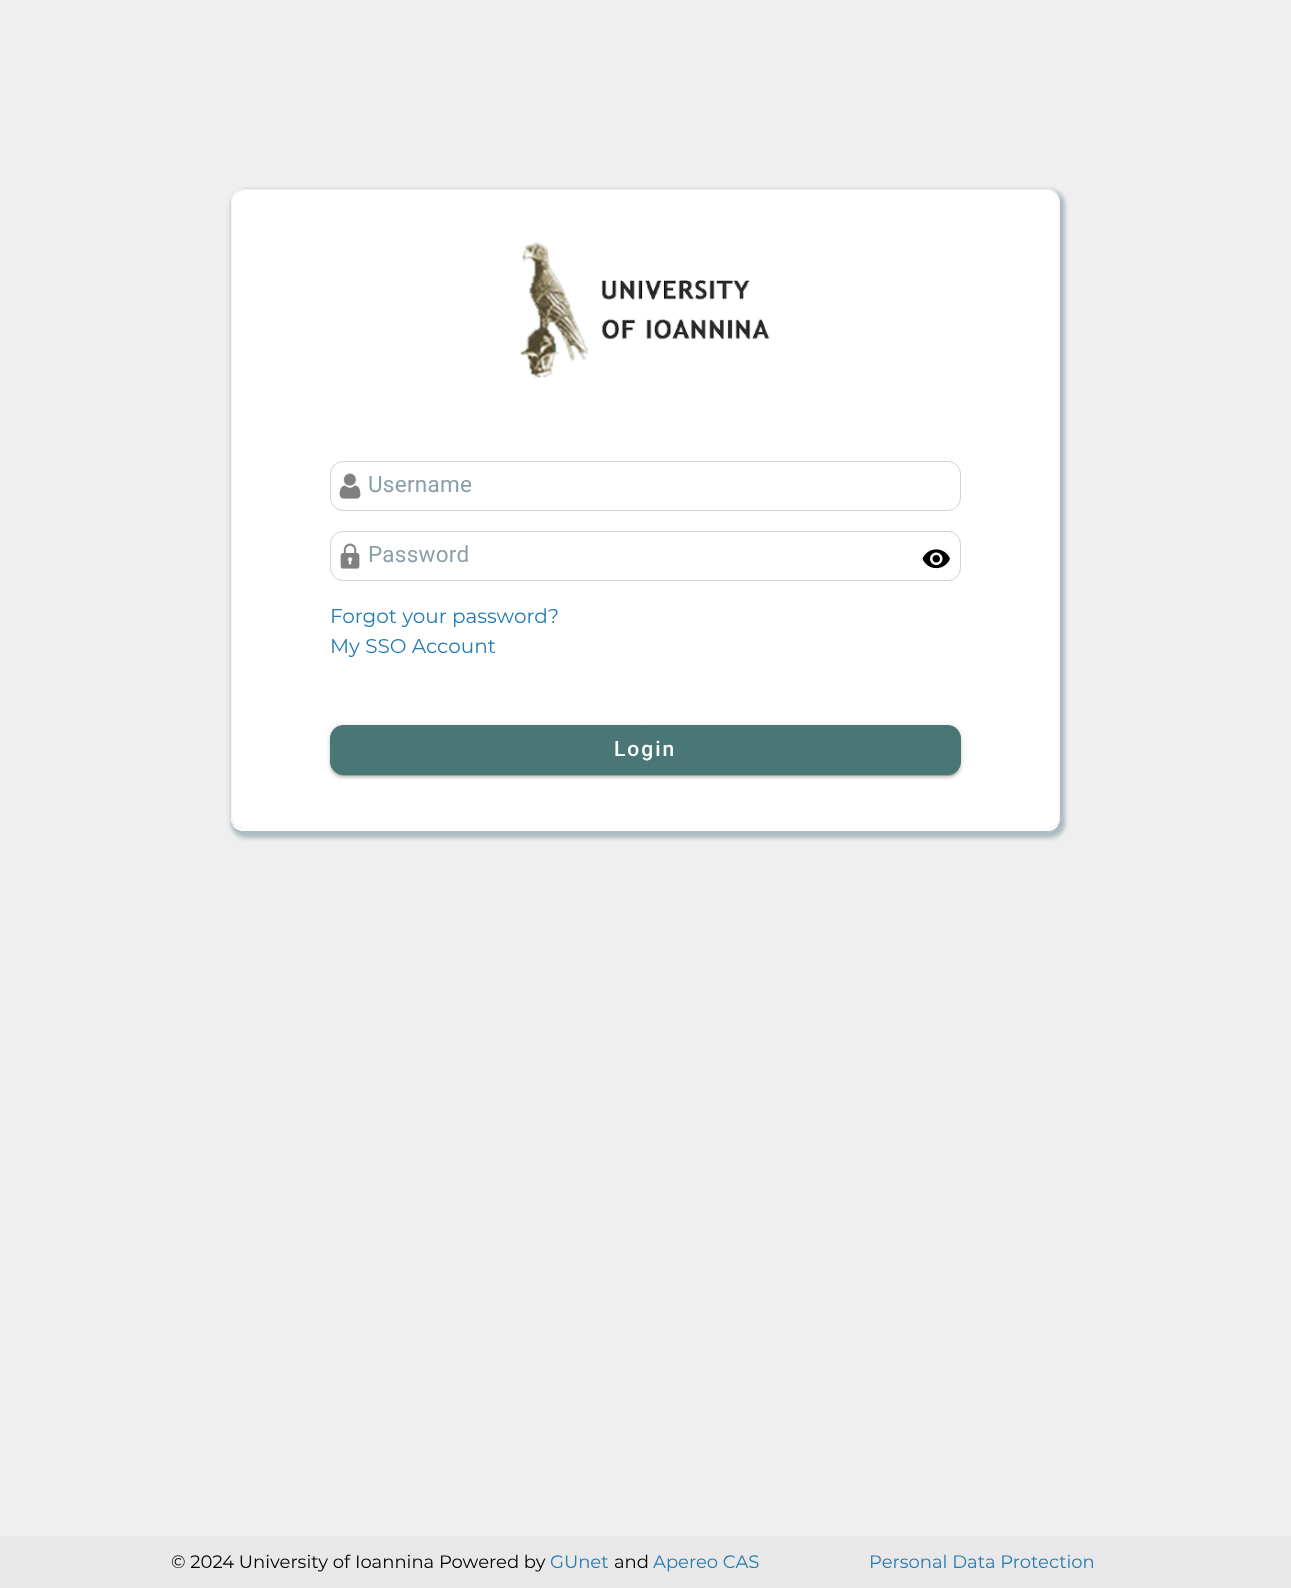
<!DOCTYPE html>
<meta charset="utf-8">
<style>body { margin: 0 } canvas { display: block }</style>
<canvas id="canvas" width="1291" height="1588"></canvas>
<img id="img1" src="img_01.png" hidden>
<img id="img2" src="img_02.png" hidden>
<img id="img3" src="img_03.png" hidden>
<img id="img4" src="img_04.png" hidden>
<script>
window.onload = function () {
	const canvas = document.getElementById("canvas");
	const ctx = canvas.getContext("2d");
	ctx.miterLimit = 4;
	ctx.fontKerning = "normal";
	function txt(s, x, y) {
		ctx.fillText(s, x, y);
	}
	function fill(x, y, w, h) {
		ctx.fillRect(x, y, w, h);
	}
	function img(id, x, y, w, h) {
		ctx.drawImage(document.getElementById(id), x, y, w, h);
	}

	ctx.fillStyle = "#EFEFEF";
	fill(0, 0, 1291, 1588);
	ctx.fillStyle = "rgba(21, 62, 80, 0.3)";
	ctx.filter = "blur(2px)";
	ctx.beginPath();
	ctx.roundRect(231, 190, 834, 648, 15);
	ctx.fill();
	ctx.filter = "none";
	ctx.fillStyle = "#FFFFFF";
	ctx.beginPath();
	ctx.moveTo(244, 190);
	ctx.lineTo(1048, 190);
	ctx.bezierCurveTo(1054, 190, 1059, 195, 1059, 201);
	ctx.lineTo(1059, 819);
	ctx.bezierCurveTo(1059, 824, 1054, 828, 1048, 828);
	ctx.lineTo(244, 828);
	ctx.bezierCurveTo(238, 828, 232, 824, 232, 819);
	ctx.lineTo(232, 201);
	ctx.bezierCurveTo(232, 195, 238, 190, 244, 190);
	ctx.closePath();
	ctx.fill();
	ctx.fillStyle = "#F4F4F4";
	ctx.beginPath();
	ctx.moveTo(244, 189);
	ctx.bezierCurveTo(240, 189, 237, 190, 235, 192);
	ctx.lineTo(236, 193);
	ctx.bezierCurveTo(238, 191, 241, 190, 244, 190);
	ctx.lineTo(1048, 190);
	ctx.bezierCurveTo(1051, 190, 1054, 191, 1056, 193);
	ctx.lineTo(1056, 192);
	ctx.bezierCurveTo(1054, 190, 1051, 189, 1048, 189);
	ctx.closePath();
	ctx.fill();
	ctx.beginPath();
	ctx.moveTo(1056, 192);
	ctx.bezierCurveTo(1059, 195, 1060, 198, 1060, 201);
	ctx.lineTo(1060, 819);
	ctx.bezierCurveTo(1060, 821, 1059, 824, 1058, 825);
	ctx.lineTo(1057, 824);
	ctx.bezierCurveTo(1058, 822, 1059, 821, 1059, 819);
	ctx.lineTo(1059, 201);
	ctx.bezierCurveTo(1059, 198, 1058, 195, 1056, 193);
	ctx.closePath();
	ctx.fill();
	ctx.fillStyle = "#FFFFFF";
	ctx.beginPath();
	ctx.moveTo(1058, 825);
	ctx.bezierCurveTo(1056, 829, 1052, 831, 1048, 831);
	ctx.lineTo(244, 831);
	ctx.bezierCurveTo(240, 831, 235, 829, 233, 826);
	ctx.lineTo(234, 824);
	ctx.bezierCurveTo(236, 826, 240, 828, 244, 828);
	ctx.lineTo(1048, 828);
	ctx.bezierCurveTo(1052, 828, 1056, 826, 1057, 824);
	ctx.closePath();
	ctx.fill();
	ctx.fillStyle = "#F4F4F4";
	ctx.beginPath();
	ctx.moveTo(231, 199);
	ctx.bezierCurveTo(232, 196, 233, 194, 235, 192);
	ctx.lineTo(236, 193);
	ctx.bezierCurveTo(234, 195, 232, 198, 232, 201);
	ctx.lineTo(232, 819);
	ctx.bezierCurveTo(232, 821, 233, 822, 234, 824);
	ctx.lineTo(233, 826);
	ctx.lineTo(231, 821);
	ctx.closePath();
	ctx.fill();
	img("img1", 520, 242, 250, 136);
	ctx.beginPath();
	ctx.roundRect(330.5, 461.5, 630, 49, 12.5);
	ctx.strokeStyle = "#CED4DA";
	ctx.stroke();
	img("img2", 339, 473, 22, 26);
	ctx.beginPath();
	ctx.roundRect(330.5, 531.5, 630, 49, 12.5);
	ctx.stroke();
	img("img3", 340, 543, 20, 26);
	img("img4", 922, 549, 28, 20);
	ctx.fillStyle = "rgba(0, 0, 0, 0.12)";
	ctx.filter = "blur(3px)";
	ctx.beginPath();
	ctx.roundRect(330, 726, 631, 50, 13);
	ctx.fill();
	ctx.filter = "none";
	ctx.fillStyle = "rgba(0, 0, 0, 0.14)";
	ctx.filter = "blur(1px)";
	ctx.beginPath();
	ctx.roundRect(330, 728, 631, 50, 13);
	ctx.fill();
	ctx.filter = "none";
	ctx.fillStyle = "rgba(0, 0, 0, 0.2)";
	ctx.filter = "blur(0.5px)";
	ctx.beginPath();
	ctx.roundRect(333, 731, 626, 45, 10);
	ctx.fill();
	ctx.filter = "none";
	ctx.fillStyle = "#497775";
	ctx.beginPath();
	ctx.roundRect(330.5, 725.5, 630, 49, 12.5);
	ctx.fill();
	ctx.strokeStyle = "#497775";
	ctx.stroke();
	ctx.fillStyle = "#E8E8E8";
	fill(0, 1536, 1291, 52);
	ctx.letterSpacing = "0.25px";
	ctx.font = "22.5px Roboto";
	ctx.fillStyle = "#8A9FA8";
	txt("Username", 368, 492);
	txt("Password", 368, 562);
	ctx.letterSpacing = "0px";
	ctx.font = "20px Montserrat";
	ctx.fillStyle = "#257BB2";
	txt("Forgot your password?", 330, 623);
	txt("My SSO Account", 330, 653);
	ctx.letterSpacing = "2px";
	ctx.font = "500 21px Roboto";
	ctx.fillStyle = "#FFFFFF";
	txt("Login", 614, 756);
	ctx.letterSpacing = "0px";
	ctx.font = "18px Montserrat";
	ctx.fillStyle = "#000000";
	txt("© 2024 University of Ioannina Powered by", 171, 1568);
	ctx.fillStyle = "#257BB2";
	txt("GUnet", 550, 1568);
	ctx.fillStyle = "#000000";
	txt("and", 614, 1568);
	ctx.fillStyle = "#257BB2";
	txt("Apereo CAS", 653, 1568);
	txt("Personal Data Protection", 869, 1568);
};
</script>
